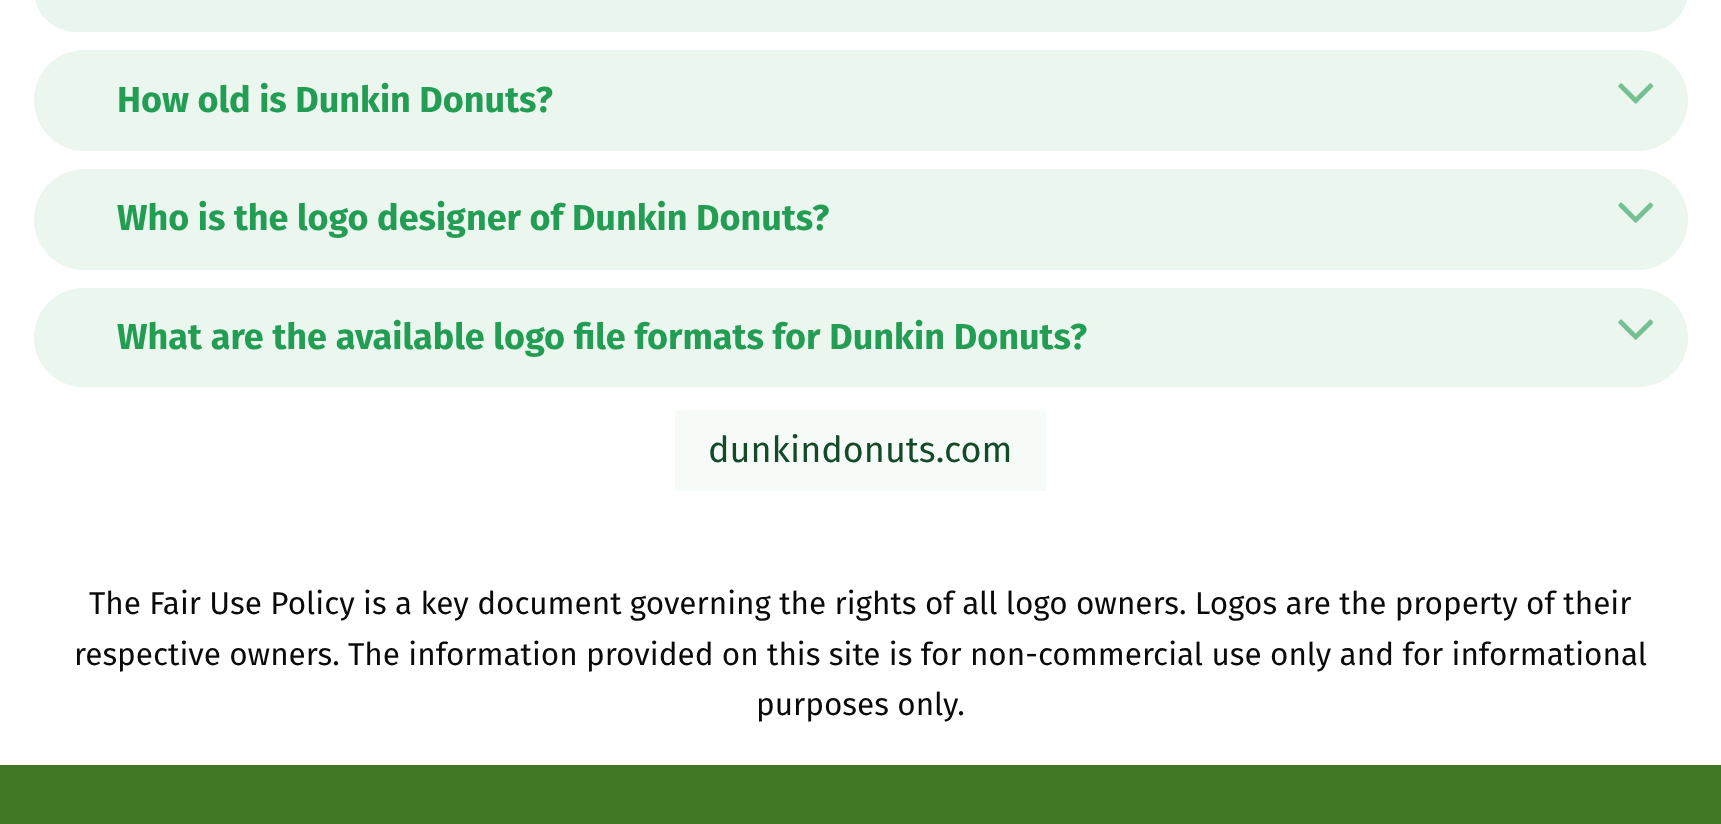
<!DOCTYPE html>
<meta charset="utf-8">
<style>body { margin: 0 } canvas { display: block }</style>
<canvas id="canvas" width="1721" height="824"></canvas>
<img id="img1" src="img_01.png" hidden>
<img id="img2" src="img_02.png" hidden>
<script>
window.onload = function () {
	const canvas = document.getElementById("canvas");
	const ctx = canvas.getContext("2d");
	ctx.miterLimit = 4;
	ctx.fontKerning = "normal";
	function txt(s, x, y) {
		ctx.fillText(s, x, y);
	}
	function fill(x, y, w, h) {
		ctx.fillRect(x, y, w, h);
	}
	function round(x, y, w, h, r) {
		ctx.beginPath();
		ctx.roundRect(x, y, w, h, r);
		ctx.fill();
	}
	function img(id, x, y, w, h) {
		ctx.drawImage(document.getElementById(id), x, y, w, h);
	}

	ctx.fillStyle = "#FFFFFF";
	fill(0, 0, 1721, 824);
	ctx.fillStyle = "#E9F5EE";
	round(34, -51, 1654, 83, 51);
	ctx.fillStyle = "#EAF6EE";
	round(34, 50, 1654, 101, 50.5);
	img("img1", 1618, 83, 36, 21);
	round(34, 169, 1654, 101, 50.5);
	img("img2", 1618, 202, 36, 21);
	round(34, 288, 1654, 99, 49.5);
	img("img2", 1618, 319, 36, 21);
	ctx.fillStyle = "#F6FBF8";
	fill(675, 410, 371, 81);
	ctx.fillStyle = "#3F7725";
	fill(0, 765, 1721, 59);
	ctx.font = "bold 36px Fira Sans";
	ctx.fillStyle = "#249D54";
	txt("How old is Dunkin Donuts?", 117, 112);
	txt("Who is the logo designer of Dunkin Donuts?", 117, 230);
	ctx.wordSpacing = "0.25px";
	txt("What are the available logo file formats for Dunkin Donuts?", 117, 349);
	ctx.wordSpacing = "0px";
	ctx.font = "36px Fira Sans";
	ctx.fillStyle = "#144A29";
	txt("dunkindonuts.com", 708, 462);
	ctx.font = "31.5px Fira Sans";
	ctx.fillStyle = "#0A0A0A";
	txt("The Fair Use Policy is a key document governing the rights of all logo owners. Logos are the property of their", 89, 614);
	txt("respective owners. The information provided on this site is for non-commercial use only and for informational", 74, 665);
	txt("purposes only.", 756, 715);
};
</script>
